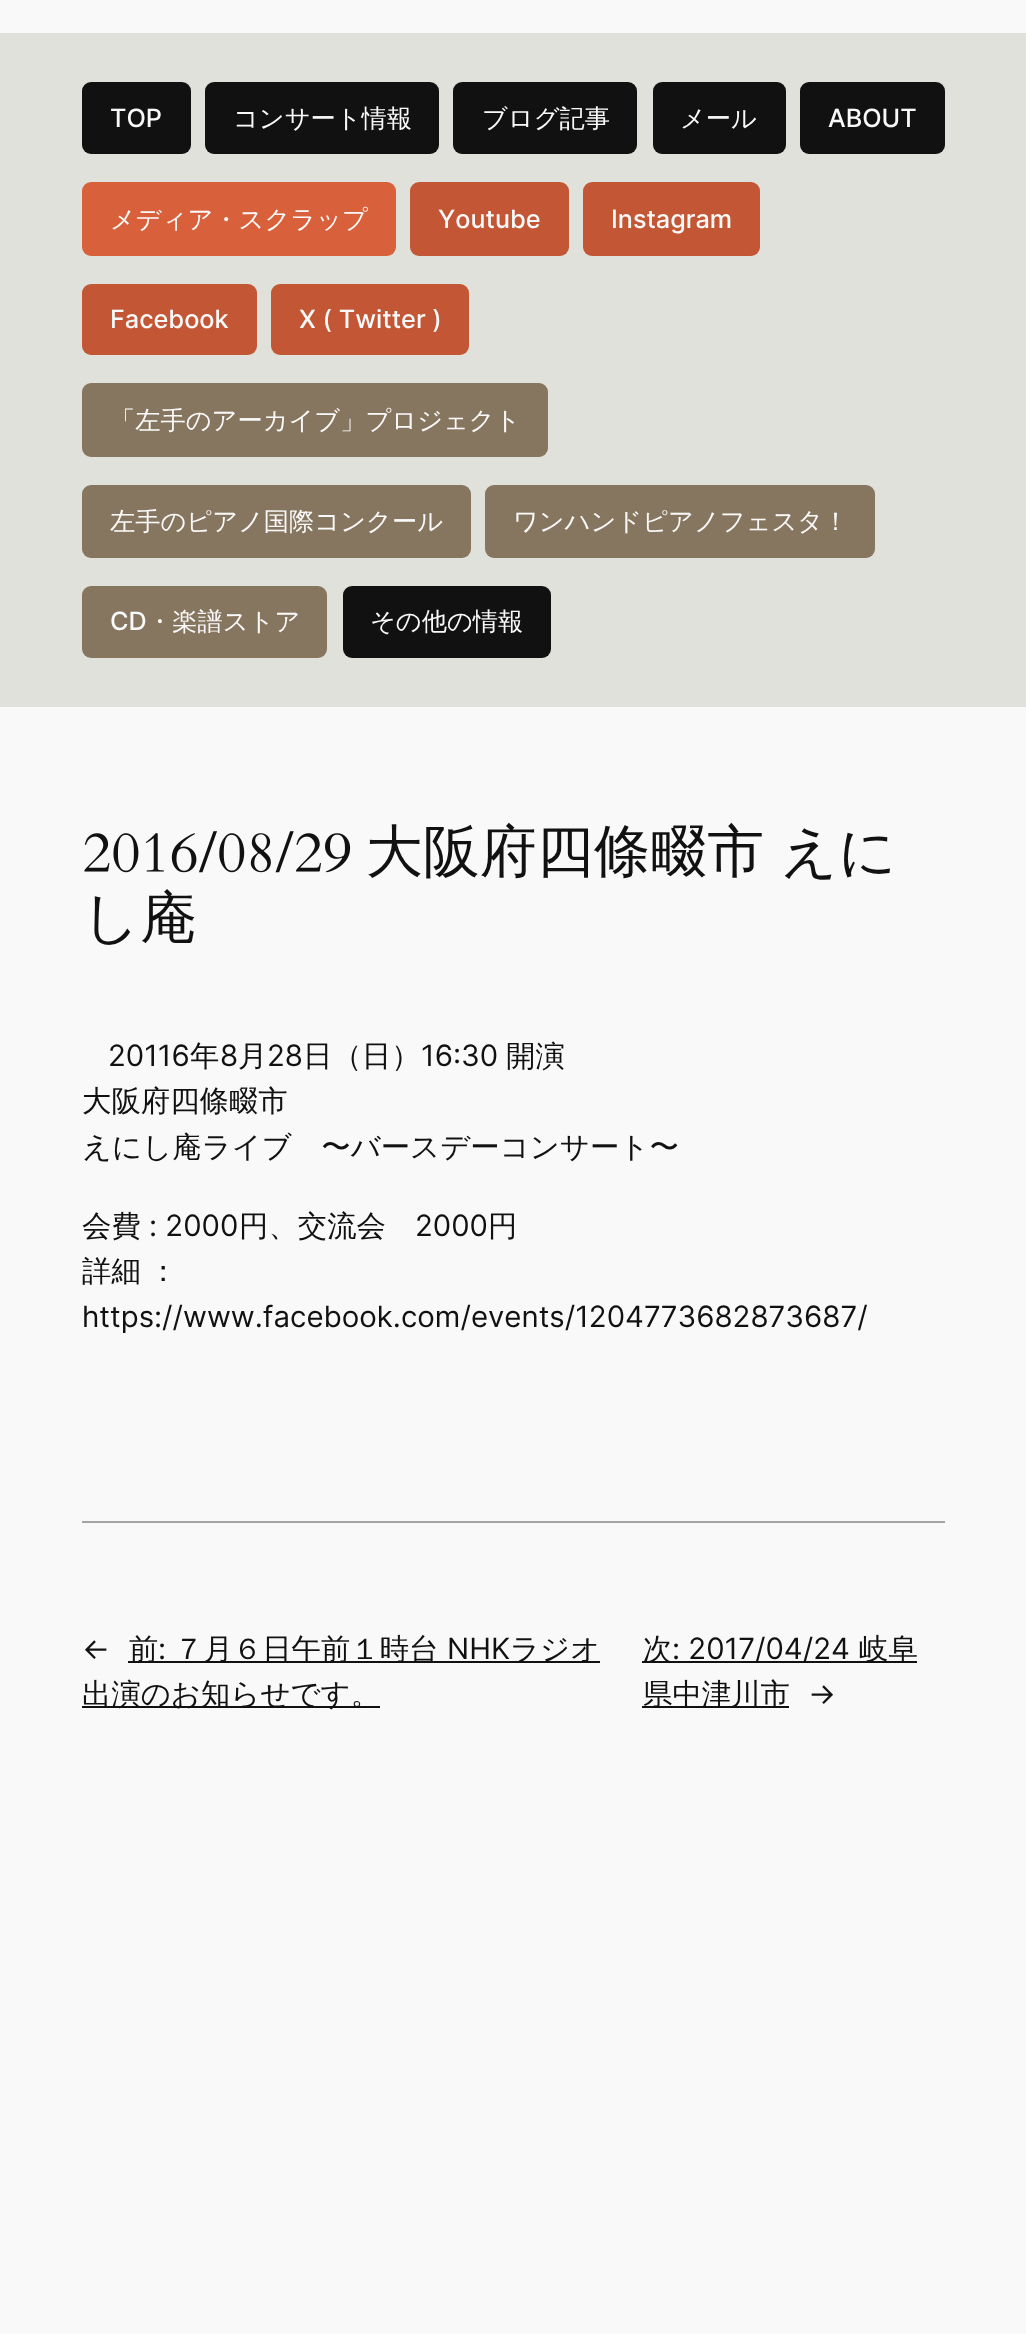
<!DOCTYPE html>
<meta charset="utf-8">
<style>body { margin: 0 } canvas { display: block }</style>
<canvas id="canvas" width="1026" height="2334"></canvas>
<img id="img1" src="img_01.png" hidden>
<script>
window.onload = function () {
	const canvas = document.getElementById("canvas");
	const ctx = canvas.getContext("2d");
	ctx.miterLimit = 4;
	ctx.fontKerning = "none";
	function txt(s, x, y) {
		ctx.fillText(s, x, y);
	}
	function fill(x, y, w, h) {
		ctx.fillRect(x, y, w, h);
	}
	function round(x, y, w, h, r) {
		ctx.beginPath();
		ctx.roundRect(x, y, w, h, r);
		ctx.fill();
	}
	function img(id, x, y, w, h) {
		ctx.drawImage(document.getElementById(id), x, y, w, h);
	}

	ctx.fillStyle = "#F9F9F9";
	fill(0, 0, 1026, 2334);
	ctx.fillStyle = "#E1E1DC";
	fill(0, 33, 1026, 674);
	ctx.fillStyle = "#111111";
	round(82, 82, 109, 72, 9);
	round(205, 82, 234, 72, 9);
	round(453, 82, 184, 72, 9);
	round(653, 82, 133, 72, 9);
	round(800, 82, 145, 72, 9);
	ctx.fillStyle = "#D8613C";
	round(82, 182, 314, 74, 9);
	ctx.fillStyle = "#C35634";
	round(410, 182, 159, 74, 9);
	round(583, 182, 177, 74, 9);
	round(82, 284, 175, 71, 9);
	round(271, 284, 198, 71, 9);
	ctx.fillStyle = "#87765F";
	round(82, 383, 466, 74, 9);
	round(82, 485, 389, 73, 9);
	round(485, 485, 390, 73, 9);
	round(82, 586, 245, 72, 9);
	ctx.fillStyle = "#111111";
	round(343, 586, 208, 72, 9);
	img("img1", 84, 831, 267, 42);
	ctx.fillStyle = "#A4A4A4";
	fill(82, 1521, 863, 2);
	ctx.fillStyle = "#111111";
	fill(128, 1661, 472, 2);
	fill(82, 1706, 298, 2);
	fill(642, 1661, 275, 2);
	fill(642, 1706, 147, 2);
	ctx.font = "500 25.25px Inter";
	ctx.fillStyle = "#F9F9F9";
	txt("TOP", 110, 127);
	ctx.font = "500 25.25px WenQuanYi Zen Hei";
	txt("コンサート情報", 233, 127);
	txt("ブログ記事", 482, 127);
	txt("メール", 680, 127);
	ctx.font = "500 25.25px Inter";
	txt("ABOUT", 828, 127);
	ctx.font = "500 25.25px WenQuanYi Zen Hei";
	txt("メディア・スクラップ", 110, 228);
	ctx.font = "500 25.25px Inter";
	txt("Youtube", 438, 228);
	txt("Instagram", 611, 228);
	txt("Facebook", 110, 328);
	txt("X ( Twitter )", 299, 328);
	ctx.font = "500 25.25px WenQuanYi Zen Hei";
	txt("「左手のアーカイブ」プロジェクト", 110, 429);
	txt("左手のピアノ国際コンクール", 110, 530);
	txt("ワンハンドピアノフェスタ！", 513, 530);
	ctx.font = "500 25.25px Inter";
	txt("CD", 110, 630);
	ctx.font = "500 25.25px WenQuanYi Zen Hei";
	txt("・楽譜ストア", 147, 630);
	txt("その他の情報", 370, 630);
	ctx.wordSpacing = "-1px";
	ctx.font = "500 56.9px WenQuanYi Zen Hei";
	ctx.fillStyle = "#111111";
	txt("大阪府四條畷市 えに", 366, 871);
	ctx.wordSpacing = "0px";
	txt("し庵", 82, 937);
	ctx.font = "29.4px Inter";
	txt("20116", 108, 1066);
	ctx.font = "500 29.4px WenQuanYi Zen Hei";
	txt("年", 190, 1066);
	ctx.font = "29.4px Inter";
	txt("8", 220, 1066);
	ctx.font = "500 29.4px WenQuanYi Zen Hei";
	txt("月", 238, 1066);
	ctx.font = "29.4px Inter";
	txt("28", 267, 1066);
	ctx.font = "500 29.4px WenQuanYi Zen Hei";
	txt("日（日）", 303, 1066);
	ctx.font = "29.4px Inter";
	txt("16:30", 421, 1066);
	ctx.font = "500 29.4px WenQuanYi Zen Hei";
	txt("開演", 506, 1066);
	txt("大阪府四條畷市", 82, 1111);
	txt("えにし庵ライブ　〜バースデーコンサート〜", 82, 1157);
	txt("会費", 82, 1236);
	ctx.font = "29.4px Inter";
	txt(": 2000", 149, 1236);
	ctx.font = "500 29.4px WenQuanYi Zen Hei";
	txt("円、交流会", 239, 1236);
	ctx.font = "29.4px Inter";
	txt("2000", 415, 1236);
	ctx.font = "500 29.4px WenQuanYi Zen Hei";
	txt("円", 488, 1236);
	ctx.wordSpacing = "-1px";
	txt("詳細 ：", 82, 1281);
	ctx.wordSpacing = "0px";
	ctx.font = "29.4px Inter";
	txt("https://www.facebook.com/events/1204773682873687/", 82, 1327);
	txt("←", 82, 1659);
	ctx.font = "500 29.4px WenQuanYi Zen Hei";
	txt("前", 129, 1659);
	ctx.font = "29.4px Inter";
	txt(":", 158, 1659);
	ctx.font = "500 29.4px WenQuanYi Zen Hei";
	txt("７月６日午前１時台", 174, 1659);
	ctx.font = "29.4px Inter";
	txt("NHK", 447, 1659);
	ctx.font = "500 29.4px WenQuanYi Zen Hei";
	txt("ラジオ", 510, 1659);
	txt("出演のお知らせです。", 82, 1704);
	txt("次", 643, 1659);
	ctx.font = "29.4px Inter";
	txt(": 2017/04/24", 672, 1659);
	ctx.font = "500 29.4px WenQuanYi Zen Hei";
	txt("岐阜", 859, 1659);
	txt("県中津川市", 643, 1704);
	ctx.font = "29.4px Inter";
	txt("→", 808, 1704);
};
</script>
